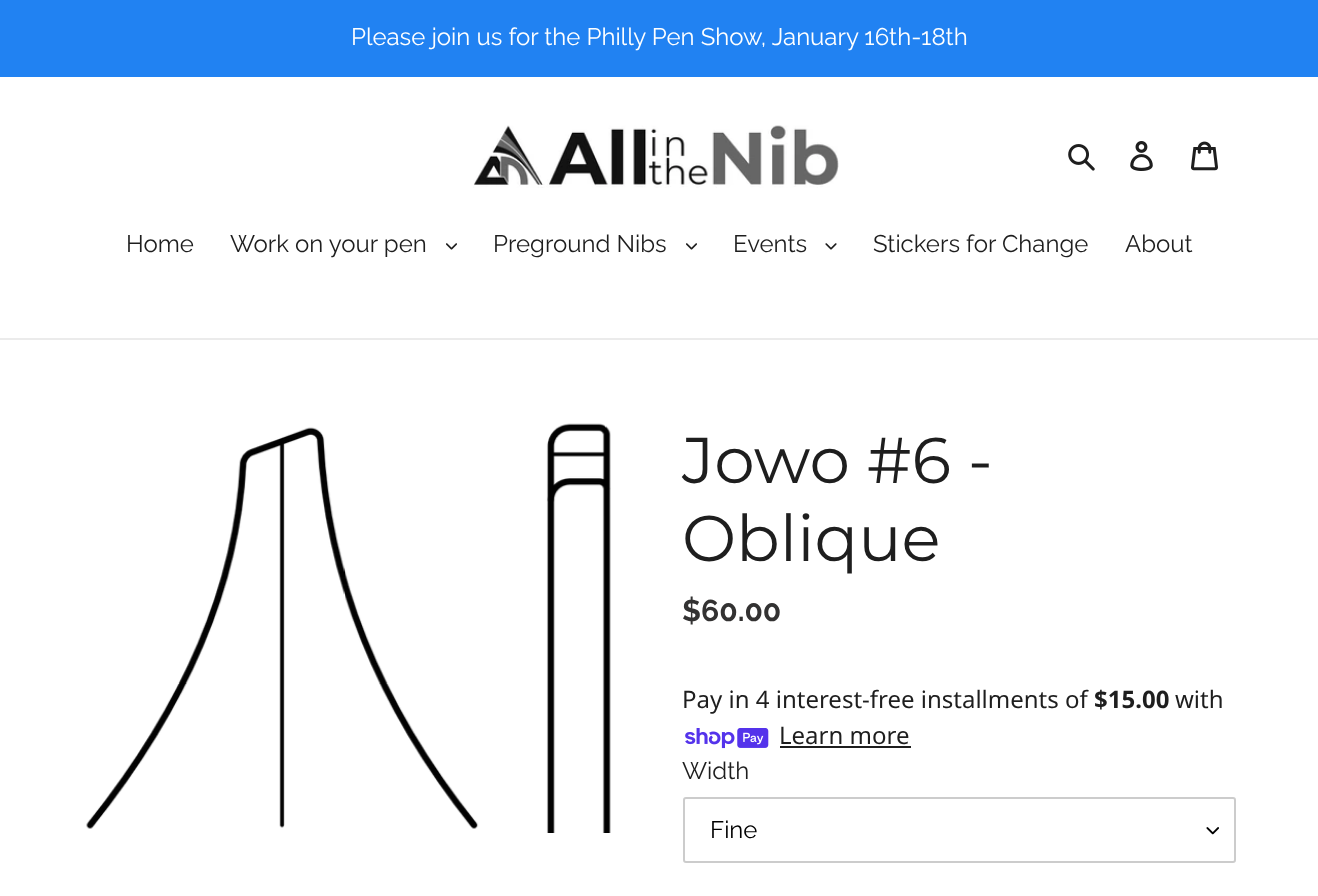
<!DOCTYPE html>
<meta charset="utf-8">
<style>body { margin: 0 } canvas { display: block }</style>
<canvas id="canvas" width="1318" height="896"></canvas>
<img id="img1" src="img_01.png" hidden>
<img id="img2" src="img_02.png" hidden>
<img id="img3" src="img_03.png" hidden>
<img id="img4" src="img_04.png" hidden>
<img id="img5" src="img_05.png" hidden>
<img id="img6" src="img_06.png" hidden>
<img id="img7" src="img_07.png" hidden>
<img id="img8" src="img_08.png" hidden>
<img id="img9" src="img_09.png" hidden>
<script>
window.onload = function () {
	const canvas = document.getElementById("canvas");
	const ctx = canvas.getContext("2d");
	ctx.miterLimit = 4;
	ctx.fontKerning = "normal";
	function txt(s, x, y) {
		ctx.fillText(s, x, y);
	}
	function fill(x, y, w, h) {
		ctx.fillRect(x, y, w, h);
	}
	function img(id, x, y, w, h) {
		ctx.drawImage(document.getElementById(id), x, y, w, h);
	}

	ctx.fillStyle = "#FFFFFF";
	fill(0, 0, 1318, 896);
	ctx.fillStyle = "#2182F2";
	fill(0, 0, 1318, 77);
	img("img1", 473, 125, 366, 63);
	img("img2", 1068, 144, 27, 27);
	img("img3", 1130, 141, 23, 30);
	img("img4", 1191, 141, 27, 30);
	ctx.fillStyle = "#EBEBEB";
	fill(0, 338, 1318, 2);
	img("img5", 446, 243, 11, 7);
	img("img5", 686, 243, 11, 7);
	img("img6", 825, 243, 12, 7);
	img("img7", 86, 423, 525, 410);
	img("img8", 685, 728, 84, 21);
	ctx.fillStyle = "#1E1E1E";
	fill(780, 746, 131, 2);
	img("img9", 1206, 827, 13, 8);
	ctx.beginPath();
	ctx.roundRect(684, 798, 551, 64, 2);
	ctx.strokeStyle = "#CCCCCC";
	ctx.lineWidth = 2;
	ctx.stroke();
	ctx.font = "24px Raleway";
	ctx.fillStyle = "#FFFFFF";
	txt("Please join us for the Philly Pen Show, January 16th-18th", 351, 45);
	ctx.fillStyle = "#1E1E1E";
	txt("Home", 126, 252);
	txt("Work on your pen", 230, 252);
	txt("Preground Nibs", 493, 252);
	txt("Events", 733, 252);
	txt("Stickers for Change", 873, 252);
	txt("About", 1125, 252);
	ctx.font = "64.5px Montserrat";
	txt("Jowo #6 -", 682, 483);
	txt("Oblique", 682, 561);
	ctx.font = "bold 30px Raleway";
	ctx.fillStyle = "#333232";
	txt("$60.00", 682, 621);
	ctx.font = "24px Noto Sans";
	ctx.fillStyle = "#1E1E1E";
	txt("Pay in 4 interest-free installments of", 682, 708);
	ctx.font = "bold 24px Noto Sans";
	txt("$15.00", 1094, 708);
	ctx.font = "24px Noto Sans";
	txt("with", 1175, 708);
	txt("Learn more", 779, 744);
	ctx.font = "24px Raleway";
	txt("Width", 682, 779);
	ctx.fillStyle = "#000000";
	txt("Fine", 710, 838);
};
</script>
